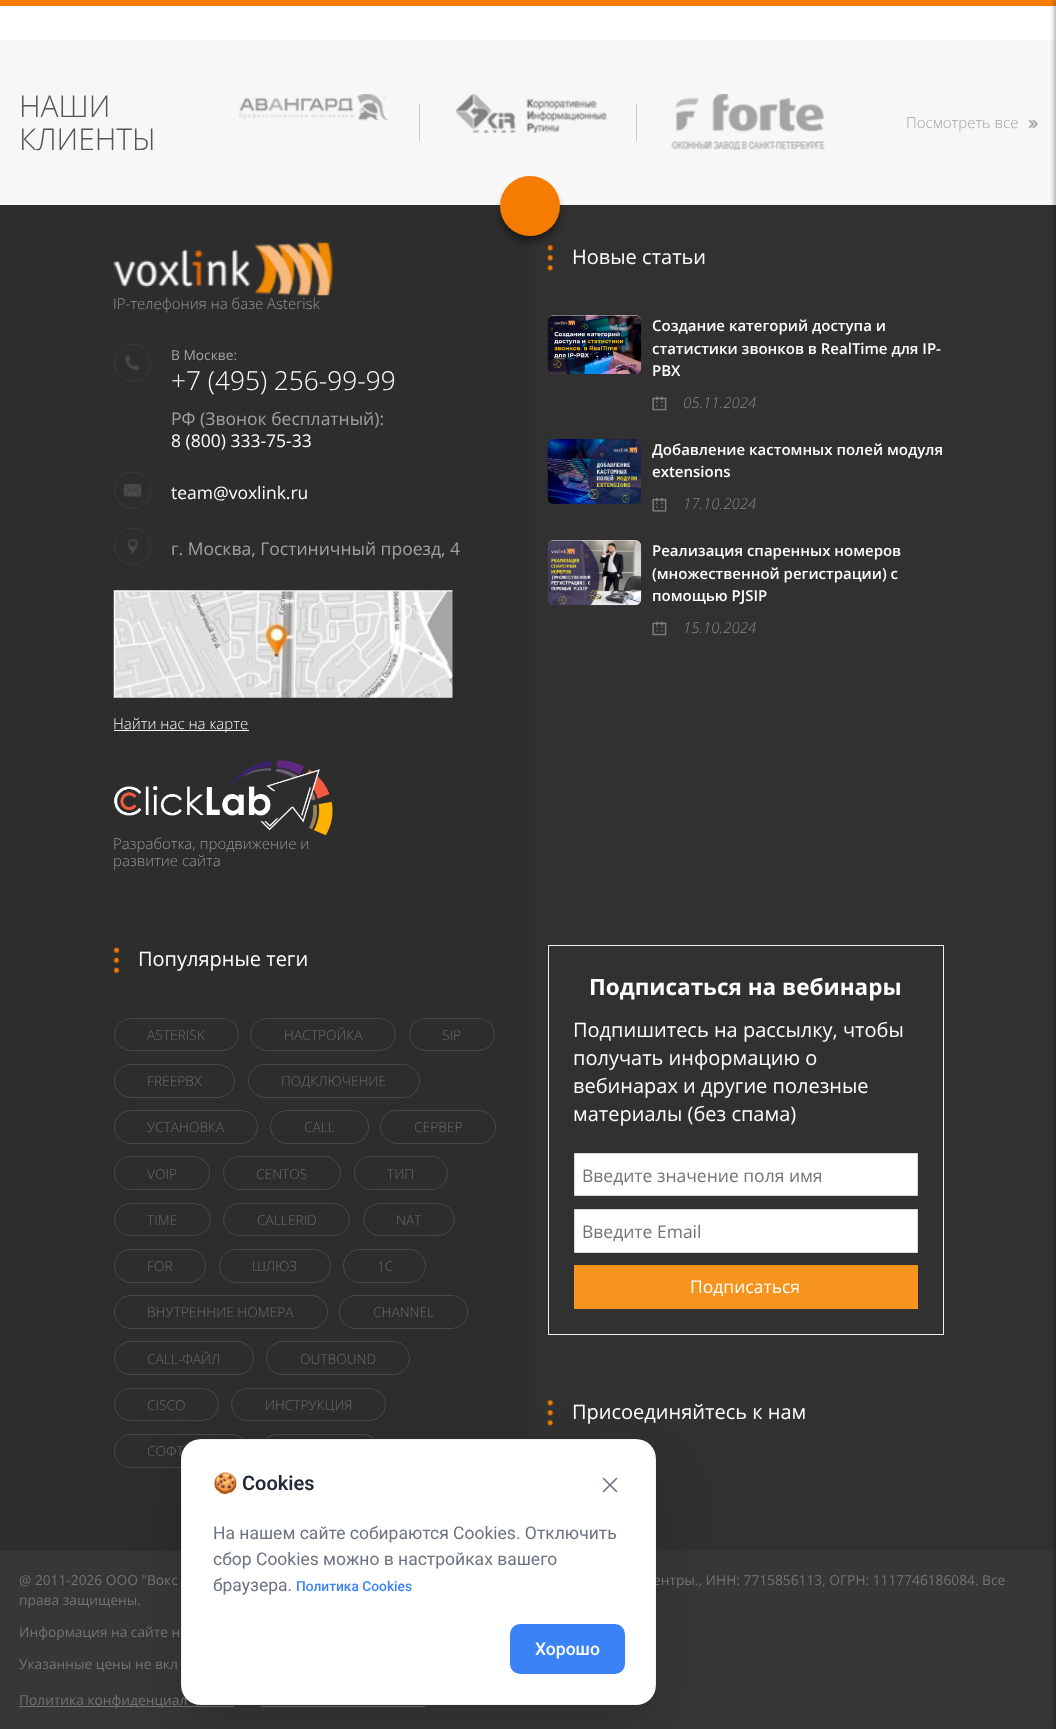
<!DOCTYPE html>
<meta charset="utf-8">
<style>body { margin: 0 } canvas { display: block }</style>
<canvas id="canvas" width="1056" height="1729"></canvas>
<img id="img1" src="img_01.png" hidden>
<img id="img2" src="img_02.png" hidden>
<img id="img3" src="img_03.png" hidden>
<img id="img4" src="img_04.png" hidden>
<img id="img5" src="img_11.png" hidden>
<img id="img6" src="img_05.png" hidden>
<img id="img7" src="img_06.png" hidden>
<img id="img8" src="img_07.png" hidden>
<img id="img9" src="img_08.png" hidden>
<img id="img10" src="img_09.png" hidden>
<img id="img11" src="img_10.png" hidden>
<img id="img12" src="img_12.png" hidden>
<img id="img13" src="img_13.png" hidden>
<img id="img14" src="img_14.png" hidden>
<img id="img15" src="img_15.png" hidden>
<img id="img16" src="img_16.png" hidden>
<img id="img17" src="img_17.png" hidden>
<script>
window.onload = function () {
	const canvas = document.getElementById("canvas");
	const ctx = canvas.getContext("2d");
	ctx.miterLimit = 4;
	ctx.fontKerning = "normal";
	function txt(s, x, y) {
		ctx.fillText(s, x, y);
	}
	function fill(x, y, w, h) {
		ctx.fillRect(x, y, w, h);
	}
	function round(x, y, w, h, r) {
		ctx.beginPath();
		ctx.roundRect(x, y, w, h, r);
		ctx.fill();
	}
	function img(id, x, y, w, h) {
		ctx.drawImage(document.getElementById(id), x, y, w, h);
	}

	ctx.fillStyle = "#FFFFFF";
	fill(0, 0, 1056, 1729);
	ctx.fillStyle = "#F57C00";
	fill(0, 0, 1056, 6);
	ctx.fillStyle = "#F7F7F7";
	fill(0, 40, 1056, 165);
	img("img1", 238, 94, 151, 27);
	ctx.fillStyle = "#CCCCCC";
	fill(419, 104, 1, 37);
	img("img2", 456, 94, 151, 39);
	fill(636, 104, 1, 37);
	img("img3", 671, 94, 154, 57);
	img("img4", 1028, 120, 10, 8);
	ctx.fillStyle = "#313131";
	fill(529, 205, 527, 1346);
	ctx.fillStyle = "#2D2D2D";
	fill(0, 205, 529, 1346);
	img("img5", 547, 245, 7, 26);
	ctx.fillStyle = "rgba(0, 0, 0, 0.35)";
	ctx.filter = "blur(3px)";
	ctx.beginPath();
	ctx.roundRect(500, 183, 60, 60, 30);
	ctx.fill();
	ctx.filter = "none";
	ctx.fillStyle = "#F57C00";
	ctx.beginPath();
	ctx.arc(530, 206, 30, 0, Math.PI * 2);
	ctx.fill();
	img("img6", 113, 242, 220, 54);
	img("img7", 114, 344, 37, 38);
	img("img8", 114, 471, 37, 38);
	img("img9", 114, 528, 37, 37);
	img("img10", 113, 590, 340, 108);
	ctx.fillStyle = "#F7F8F8";
	fill(114, 730, 135, 1);
	img("img11", 113, 760, 220, 76);
	ctx.fillStyle = "#FFFFFF";
	round(548, 315, 93, 59, 6);
	img("img12", 547, 315, 95, 59);
	img("img13", 652, 396, 15, 15);
	img("img14", 547, 439, 94, 65);
	img("img15", 652, 497, 15, 15);
	round(548, 540, 93, 65, 6);
	img("img16", 547, 540, 95, 66);
	img("img13", 652, 621, 15, 15);
	img("img17", 113, 947, 7, 26);
	ctx.beginPath();
	ctx.roundRect(114.5, 1018.5, 124, 32, 16);
	ctx.strokeStyle = "#494949";
	ctx.stroke();
	ctx.beginPath();
	ctx.roundRect(250.5, 1018.5, 145, 32, 16);
	ctx.stroke();
	ctx.beginPath();
	ctx.roundRect(409.5, 1018.5, 85, 32, 16);
	ctx.stroke();
	ctx.beginPath();
	ctx.roundRect(114.5, 1064.5, 120, 33, 16.5);
	ctx.stroke();
	ctx.beginPath();
	ctx.roundRect(248.5, 1064.5, 171, 33, 16.5);
	ctx.stroke();
	ctx.beginPath();
	ctx.roundRect(114.5, 1110.5, 143, 33, 16.5);
	ctx.stroke();
	ctx.beginPath();
	ctx.roundRect(270.5, 1110.5, 98, 33, 16.5);
	ctx.stroke();
	ctx.beginPath();
	ctx.roundRect(380.5, 1110.5, 115, 33, 16.5);
	ctx.stroke();
	ctx.beginPath();
	ctx.roundRect(114.5, 1156.5, 95, 33, 16.5);
	ctx.stroke();
	ctx.beginPath();
	ctx.roundRect(223.5, 1156.5, 117, 33, 16.5);
	ctx.stroke();
	ctx.beginPath();
	ctx.roundRect(354.5, 1156.5, 93, 33, 16.5);
	ctx.stroke();
	ctx.beginPath();
	ctx.roundRect(114.5, 1203.5, 96, 32, 16);
	ctx.stroke();
	ctx.beginPath();
	ctx.roundRect(223.5, 1203.5, 126, 32, 16);
	ctx.stroke();
	ctx.beginPath();
	ctx.roundRect(363.5, 1203.5, 91, 32, 16);
	ctx.stroke();
	ctx.beginPath();
	ctx.roundRect(114.5, 1249.5, 91, 33, 16.5);
	ctx.stroke();
	ctx.beginPath();
	ctx.roundRect(219.5, 1249.5, 111, 33, 16.5);
	ctx.stroke();
	ctx.beginPath();
	ctx.roundRect(343.5, 1249.5, 82, 33, 16.5);
	ctx.stroke();
	ctx.beginPath();
	ctx.roundRect(114.5, 1295.5, 213, 33, 16.5);
	ctx.stroke();
	ctx.beginPath();
	ctx.roundRect(339.5, 1295.5, 128, 33, 16.5);
	ctx.stroke();
	ctx.beginPath();
	ctx.roundRect(114.5, 1341.5, 139, 33, 16.5);
	ctx.stroke();
	ctx.beginPath();
	ctx.roundRect(266.5, 1341.5, 143, 33, 16.5);
	ctx.stroke();
	ctx.beginPath();
	ctx.roundRect(114.5, 1388.5, 104, 32, 16);
	ctx.stroke();
	ctx.beginPath();
	ctx.roundRect(231.5, 1388.5, 154, 32, 16);
	ctx.stroke();
	ctx.beginPath();
	ctx.roundRect(114.5, 1434.5, 134, 33, 16.5);
	ctx.stroke();
	ctx.beginPath();
	ctx.roundRect(260.5, 1434.5, 119, 33, 16.5);
	ctx.stroke();
	ctx.strokeStyle = "#EEEEEE";
	ctx.strokeRect(548.5, 945.5, 395, 389);
	ctx.beginPath();
	ctx.rect(574.5, 1153.5, 343, 42);
	ctx.fill();
	ctx.strokeStyle = "#D9D9D9";
	ctx.stroke();
	ctx.beginPath();
	ctx.rect(574.5, 1209.5, 343, 43);
	ctx.fill();
	ctx.stroke();
	ctx.fillStyle = "#F7941D";
	fill(574, 1265, 344, 44);
	img("img5", 547, 1400, 7, 26);
	ctx.fillStyle = "#373737";
	fill(0, 1551, 1056, 178);
	ctx.fillStyle = "#737373";
	fill(19, 1706, 215, 1);
	fill(261, 1706, 164, 1);
	ctx.fillStyle = "rgba(0, 0, 0, 0.15)";
	ctx.filter = "blur(25px)";
	ctx.beginPath();
	ctx.roundRect(181, 1464, 475, 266, 20);
	ctx.fill();
	ctx.filter = "none";
	ctx.fillStyle = "rgba(0, 0, 0, 0.3)";
	ctx.filter = "blur(2px)";
	ctx.beginPath();
	ctx.rect(1054, 0, 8, 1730);
	ctx.fill();
	ctx.filter = "none";
	ctx.font = "300 30px Open Sans";
	ctx.fillStyle = "#555555";
	txt("НАШИ", 19, 117);
	txt("КЛИЕНТЫ", 19, 150);
	ctx.font = "300 15px Open Sans";
	ctx.fillStyle = "#A2A2A2";
	txt("Посмотреть все", 906, 128);
	ctx.fillStyle = "#969696";
	txt("IP-телефония на базе Asterisk", 113, 309);
	ctx.font = "13.75px Open Sans";
	ctx.fillStyle = "#A2A2A2";
	txt("В Москве:", 171, 360);
	ctx.font = "300 26.25px Open Sans";
	ctx.fillStyle = "#FFFFFF";
	txt("+7 (495) 256-99-99", 171, 390);
	ctx.font = "17.5px Open Sans";
	ctx.fillStyle = "#A2A2A2";
	txt("РФ (Звонок бесплатный):", 171, 425);
	ctx.fillStyle = "#FFFFFF";
	txt("8 (800) 333-75-33", 171, 447);
	txt("team@voxlink.ru", 171, 499);
	ctx.fillStyle = "#A2A2A2";
	txt("г. Москва, Гостиничный проезд, 4", 171, 555);
	ctx.font = "300 15px Open Sans";
	ctx.fillStyle = "#F7F8F8";
	txt("Найти нас на карте", 113, 729);
	ctx.fillStyle = "#969696";
	txt("Разработка, продвижение и", 113, 849);
	txt("развитие сайта", 113, 866);
	ctx.font = "20px Open Sans";
	ctx.fillStyle = "#FFFFFF";
	txt("Новые статьи", 572, 264);
	ctx.font = "600 15px Open Sans";
	txt("Создание категорий доступа и", 652, 331);
	txt("статистики звонков в RealTime для IP-", 652, 354);
	txt("PBX", 652, 376);
	ctx.font = "italic 300 15px Open Sans";
	ctx.fillStyle = "#7F8890";
	txt("05.11.2024", 683, 408);
	ctx.font = "600 15px Open Sans";
	ctx.fillStyle = "#FFFFFF";
	txt("Добавление кастомных полей модуля", 652, 455);
	txt("extensions", 652, 477);
	ctx.font = "italic 300 15px Open Sans";
	ctx.fillStyle = "#7F8890";
	txt("17.10.2024", 683, 509);
	ctx.font = "600 15px Open Sans";
	ctx.fillStyle = "#FFFFFF";
	txt("Реализация спаренных номеров", 652, 556);
	txt("(множественной регистрации) с", 652, 579);
	txt("помощью PJSIP", 652, 601);
	ctx.font = "italic 300 15px Open Sans";
	ctx.fillStyle = "#7F8890";
	txt("15.10.2024", 683, 633);
	ctx.font = "20px Open Sans";
	ctx.fillStyle = "#FFFFFF";
	txt("Популярные теги", 138, 966);
	ctx.font = "300 13.75px Open Sans";
	ctx.fillStyle = "#6C6C6C";
	txt("ASTERISK", 147, 1040);
	txt("НАСТРОЙКА", 284, 1040);
	txt("SIP", 442, 1040);
	txt("FREEPBX", 147, 1086);
	txt("ПОДКЛЮЧЕНИЕ", 281, 1086);
	txt("УСТАНОВКА", 147, 1132);
	txt("CALL", 304, 1132);
	txt("СЕРВЕР", 414, 1132);
	txt("VOIP", 147, 1179);
	txt("CENTOS", 256, 1179);
	txt("ТИП", 387, 1179);
	txt("TIME", 147, 1225);
	txt("CALLERID", 257, 1225);
	txt("NAT", 396, 1225);
	txt("FOR", 147, 1271);
	txt("ШЛЮЗ", 252, 1271);
	txt("1C", 377, 1271);
	txt("ВНУТРЕННИЕ НОМЕРА", 147, 1317);
	txt("CHANNEL", 373, 1317);
	txt("CALL-ФАЙЛ", 147, 1364);
	txt("OUTBOUND", 300, 1364);
	txt("CISCO", 147, 1410);
	txt("ИНСТРУКЦИЯ", 265, 1410);
	txt("СОФТ", 147, 1456);
	ctx.font = "bold 22.5px Open Sans";
	ctx.fillStyle = "#FFFFFF";
	txt("Подписаться на вебинары", 589, 995);
	ctx.font = "20px Open Sans";
	txt("Подпишитесь на рассылку, чтобы", 573, 1037);
	txt("получать информацию о", 573, 1065);
	txt("вебинарах и другие полезные", 573, 1093);
	txt("материалы (без спама)", 573, 1121);
	ctx.font = "17.5px Open Sans";
	ctx.fillStyle = "#737373";
	txt("Введите значение поля имя", 582, 1182);
	txt("Введите Email", 582, 1238);
	ctx.fillStyle = "#FFFFFF";
	txt("Подписаться", 690, 1293);
	ctx.font = "20px Open Sans";
	txt("Присоединяйтесь к нам", 572, 1419);
	ctx.font = "13.75px Open Sans";
	ctx.fillStyle = "#737373";
	txt("@ 2011-2026 ООО \"Вокс", 19, 1585);
	txt("ентры., ИНН: 7715856113, ОГРН: 1117746186084. Все", 653, 1585);
	txt("права защищены.", 19, 1605);
	txt("Информация на сайте н", 19, 1637);
	txt("Указанные цены не вкл", 19, 1669);
	txt("Политика конфиденциал", 19, 1705);
	ctx.fillStyle = "#FFFFFF";
	round(181, 1439, 475, 266, 20);
	ctx.strokeStyle = "rgba(0, 0, 0, 0.05)";
	ctx.strokeRect(181.5, 1439.5, 474, 265);
	ctx.beginPath();
	ctx.moveTo(603.5, 1478.5);
	ctx.lineTo(616.5, 1491.5);
	ctx.moveTo(603.5, 1491.5);
	ctx.lineTo(616.5, 1478.5);
	ctx.strokeStyle = "#6B7280";
	ctx.lineWidth = 1.6;
	ctx.lineCap = "round";
	ctx.stroke();
	ctx.fillStyle = "#3B82F6";
	round(510, 1624, 115, 50, 10);
	ctx.font = "500 17.5px Roboto";
	ctx.fillStyle = "#FFFFFF";
	txt("Хорошо", 535, 1655);
	ctx.font = "500 13.75px Roboto";
	ctx.fillStyle = "#3B82F6";
	txt("Политика Cookies", 296, 1591);
	ctx.font = "17.5px Roboto";
	ctx.fillStyle = "#6B7280";
	txt("браузера.", 213, 1591);
	txt("сбор Cookies можно в настройках вашего", 213, 1565);
	txt("На нашем сайте собираются Cookies. Отключить", 213, 1539);
	ctx.font = "600 20px Roboto";
	ctx.fillStyle = "#1F2937";
	txt("Cookies", 242, 1490);
	ctx.font = "bold 20px Noto Color Emoji";
	txt("🍪", 213, 1490);
};
</script>
